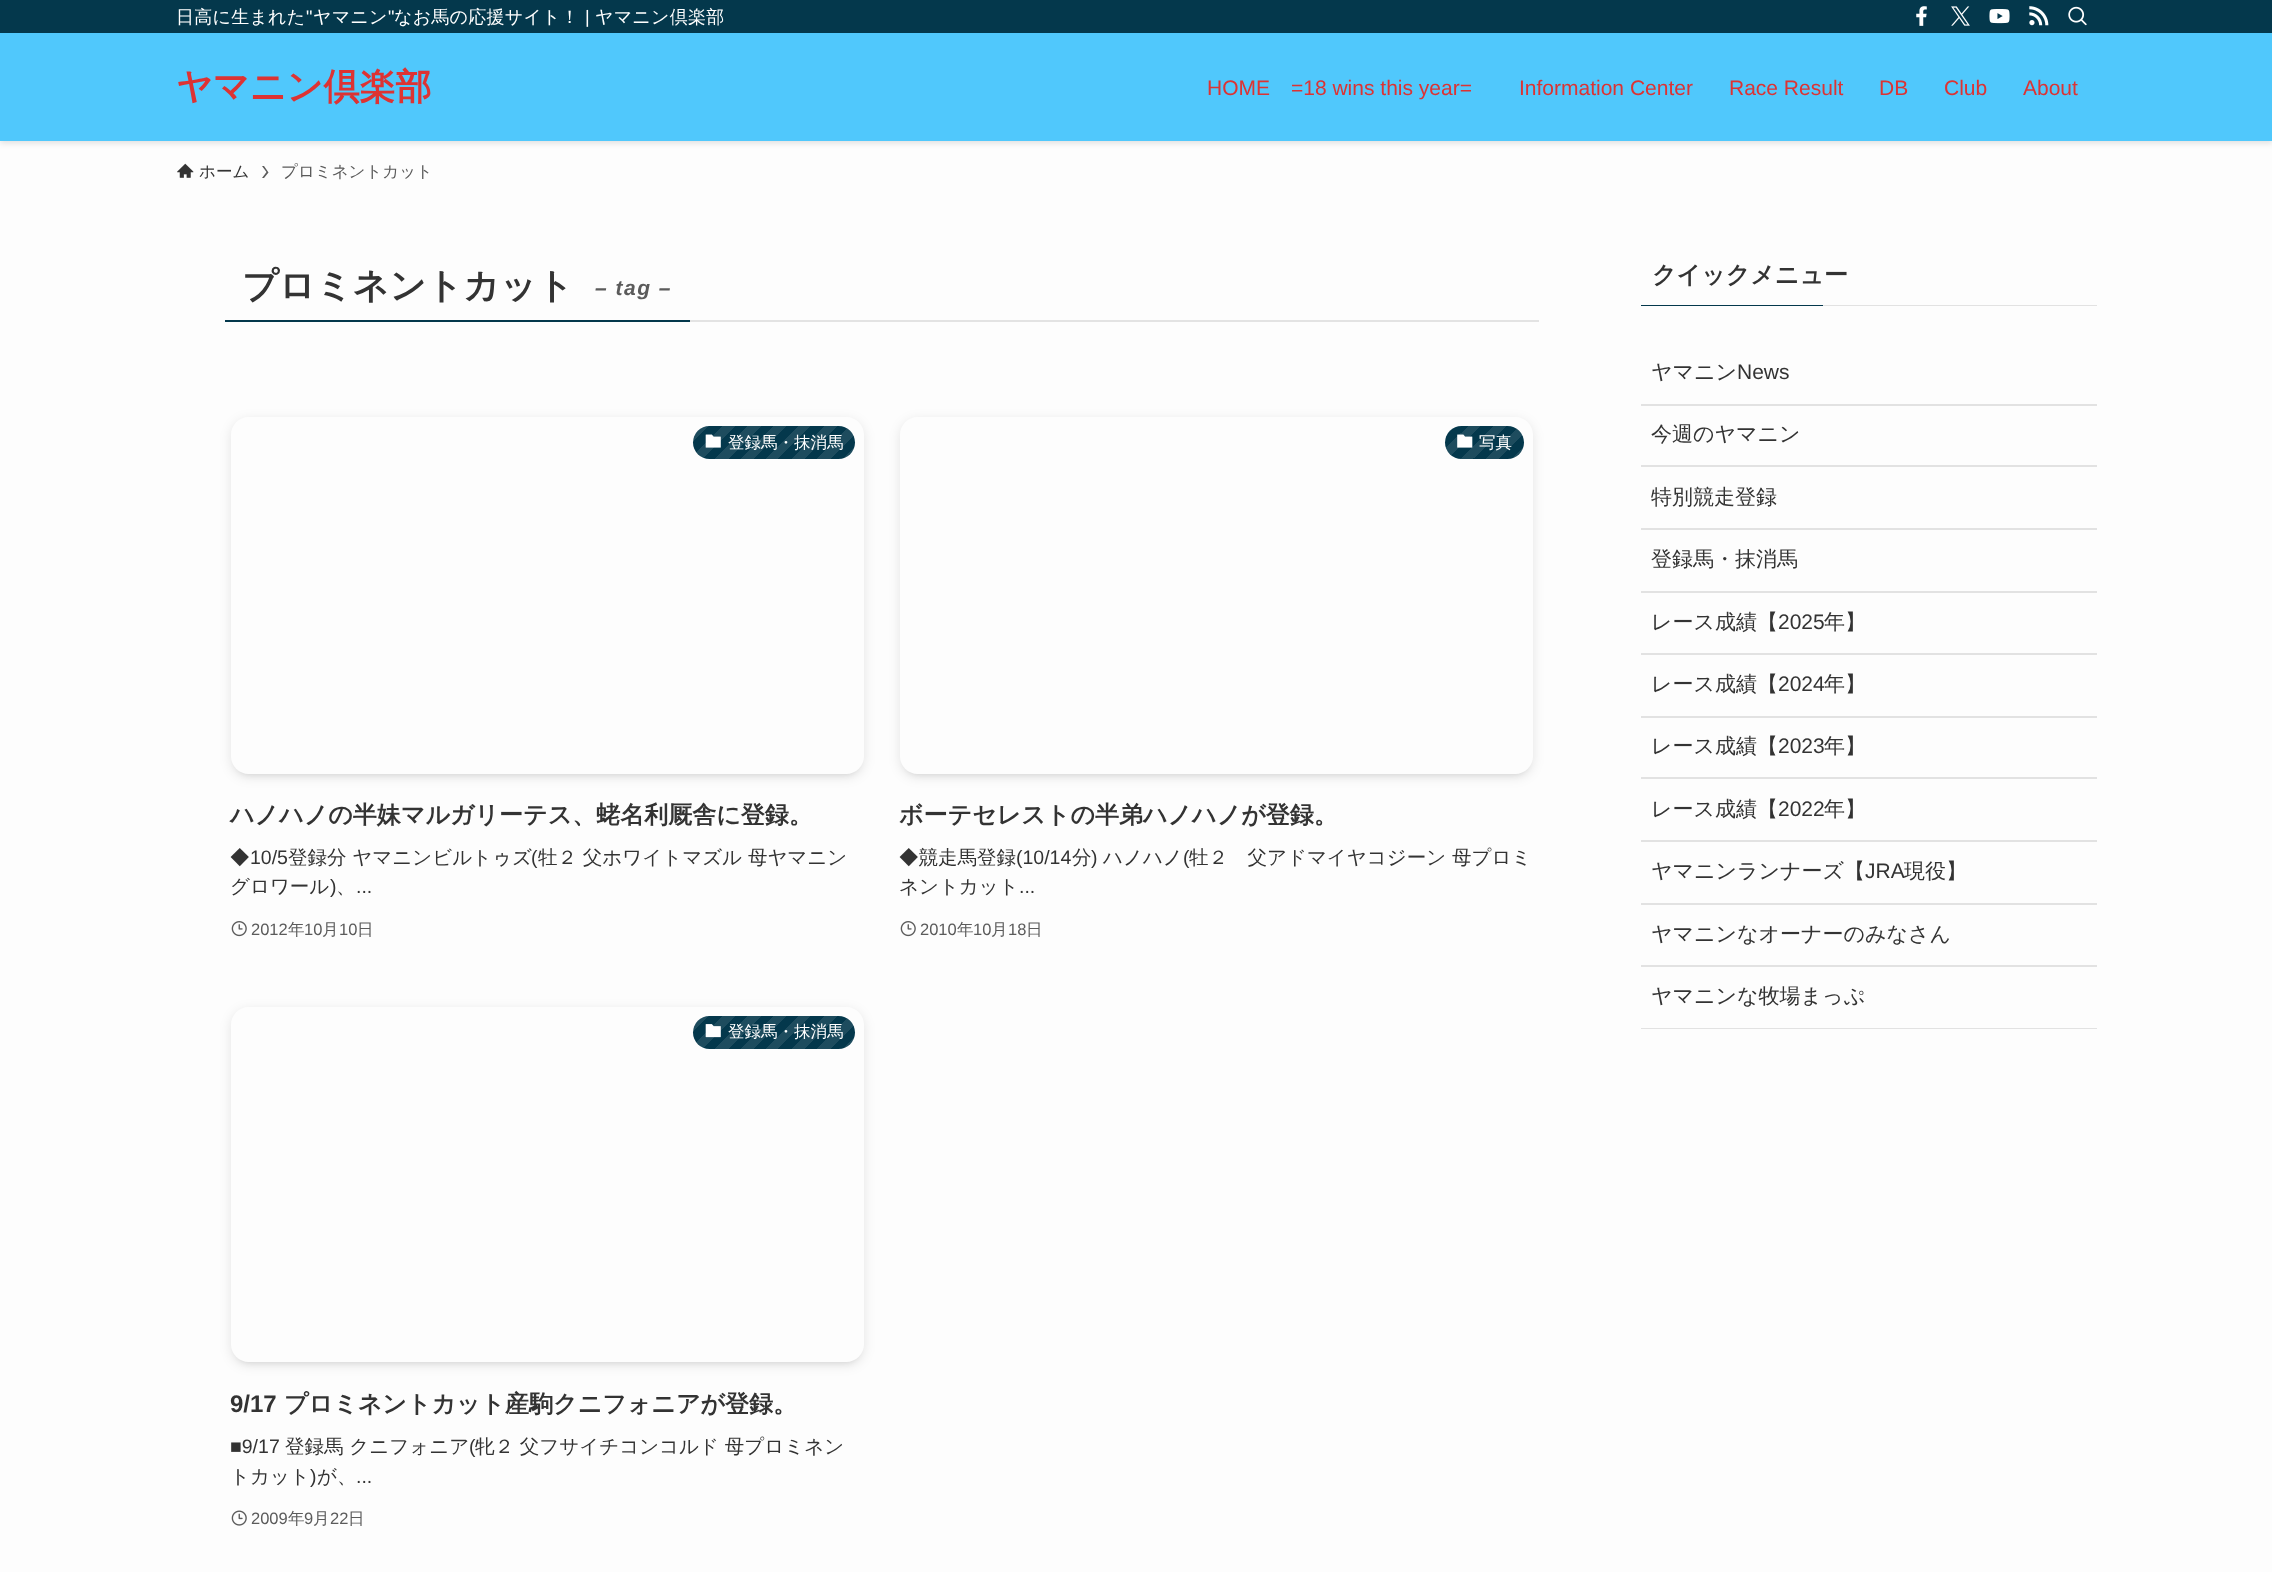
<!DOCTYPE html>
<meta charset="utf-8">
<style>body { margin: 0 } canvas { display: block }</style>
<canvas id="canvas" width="2272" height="1572"></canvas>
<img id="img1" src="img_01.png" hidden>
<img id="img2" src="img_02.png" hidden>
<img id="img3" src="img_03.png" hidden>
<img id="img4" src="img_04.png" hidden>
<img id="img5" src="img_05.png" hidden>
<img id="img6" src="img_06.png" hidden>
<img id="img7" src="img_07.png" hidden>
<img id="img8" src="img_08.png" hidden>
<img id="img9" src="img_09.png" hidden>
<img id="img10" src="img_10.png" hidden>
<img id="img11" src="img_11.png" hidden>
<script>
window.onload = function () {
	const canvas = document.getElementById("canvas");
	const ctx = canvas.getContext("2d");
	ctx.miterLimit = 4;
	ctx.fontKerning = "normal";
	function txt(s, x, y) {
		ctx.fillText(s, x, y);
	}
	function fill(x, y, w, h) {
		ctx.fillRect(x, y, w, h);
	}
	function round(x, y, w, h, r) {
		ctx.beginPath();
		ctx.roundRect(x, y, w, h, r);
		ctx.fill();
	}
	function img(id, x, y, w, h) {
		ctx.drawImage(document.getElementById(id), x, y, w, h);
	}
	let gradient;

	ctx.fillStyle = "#FDFDFD";
	fill(0, 0, 2272, 1572);
	ctx.fillStyle = "rgba(0, 0, 0, 0.12)";
	ctx.filter = "blur(3px)";
	ctx.beginPath();
	ctx.rect(0, 2, 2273, 141);
	ctx.fill();
	ctx.filter = "none";
	ctx.fillStyle = "#50C8FC";
	fill(0, 33, 2272, 108);
	ctx.fillStyle = "#04384C";
	fill(0, 0, 2272, 33);
	img("img1", 1916, 6, 11, 20);
	img("img2", 1951, 6, 19, 20);
	img("img3", 1989, 9, 21, 15);
	img("img4", 2029, 6, 20, 20);
	img("img5", 2068, 6, 19, 20);
	img("img6", 177, 163, 17, 15);
	ctx.fillStyle = "#5B5B5B";
	ctx.beginPath();
	ctx.moveTo(264, 166);
	ctx.lineTo(262, 166);
	ctx.lineTo(266.5, 172);
	ctx.lineTo(262, 178);
	ctx.lineTo(264, 178);
	ctx.lineTo(268.5, 172.5);
	ctx.closePath();
	ctx.fill();
	ctx.fillStyle = "#E3E3E3";
	fill(690, 320, 849, 2);
	ctx.fillStyle = "#04384C";
	fill(225, 320, 465, 2);
	ctx.save();
	ctx.beginPath();
	ctx.moveTo(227, 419);
	ctx.lineTo(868, 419);
	ctx.lineTo(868, 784);
	ctx.lineTo(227, 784);
	ctx.closePath();
	ctx.moveTo(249, 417);
	ctx.lineTo(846, 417);
	ctx.bezierCurveTo(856, 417, 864, 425, 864, 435);
	ctx.lineTo(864, 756);
	ctx.bezierCurveTo(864, 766, 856, 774, 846, 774);
	ctx.lineTo(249, 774);
	ctx.bezierCurveTo(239, 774, 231, 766, 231, 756);
	ctx.lineTo(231, 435);
	ctx.bezierCurveTo(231, 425, 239, 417, 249, 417);
	ctx.closePath();
	ctx.clip("evenodd");
	ctx.fillStyle = "rgba(0, 0, 0, 0.1)";
	ctx.filter = "blur(3px)";
	ctx.beginPath();
	ctx.roundRect(237, 429, 621, 345, 12);
	ctx.fill();
	ctx.filter = "none";
	ctx.restore();
	ctx.save();
	ctx.beginPath();
	ctx.moveTo(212, 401);
	ctx.lineTo(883, 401);
	ctx.lineTo(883, 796);
	ctx.lineTo(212, 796);
	ctx.closePath();
	ctx.moveTo(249, 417);
	ctx.lineTo(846, 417);
	ctx.bezierCurveTo(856, 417, 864, 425, 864, 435);
	ctx.lineTo(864, 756);
	ctx.bezierCurveTo(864, 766, 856, 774, 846, 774);
	ctx.lineTo(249, 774);
	ctx.bezierCurveTo(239, 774, 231, 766, 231, 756);
	ctx.lineTo(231, 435);
	ctx.bezierCurveTo(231, 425, 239, 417, 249, 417);
	ctx.closePath();
	ctx.clip("evenodd");
	ctx.fillStyle = "rgba(0, 0, 0, 0.1)";
	ctx.filter = "blur(6px)";
	ctx.beginPath();
	ctx.roundRect(231, 420, 633, 357, 18);
	ctx.fill();
	ctx.filter = "none";
	ctx.restore();
	round(693, 426, 162, 33, 16.5);
	gradient = ctx.createLinearGradient(823, 491, 721, 389);
	gradient.addColorStop(0, "rgba(255, 255, 255, 0.1)");
	gradient.addColorStop(0.06, "rgba(255, 255, 255, 0.1)");
	gradient.addColorStop(0.06, "rgba(255, 255, 255, 0)");
	gradient.addColorStop(0.12, "rgba(255, 255, 255, 0)");
	gradient.addColorStop(0.12, "rgba(255, 255, 255, 0.1)");
	gradient.addColorStop(0.19, "rgba(255, 255, 255, 0.1)");
	gradient.addColorStop(0.19, "rgba(255, 255, 255, 0)");
	gradient.addColorStop(0.25, "rgba(255, 255, 255, 0)");
	gradient.addColorStop(0.25, "rgba(255, 255, 255, 0.1)");
	gradient.addColorStop(0.31, "rgba(255, 255, 255, 0.1)");
	gradient.addColorStop(0.31, "rgba(255, 255, 255, 0)");
	gradient.addColorStop(0.38, "rgba(255, 255, 255, 0)");
	gradient.addColorStop(0.38, "rgba(255, 255, 255, 0.1)");
	gradient.addColorStop(0.44, "rgba(255, 255, 255, 0.1)");
	gradient.addColorStop(0.44, "rgba(255, 255, 255, 0)");
	gradient.addColorStop(0.5, "rgba(255, 255, 255, 0)");
	gradient.addColorStop(0.5, "rgba(255, 255, 255, 0.1)");
	gradient.addColorStop(0.56, "rgba(255, 255, 255, 0.1)");
	gradient.addColorStop(0.56, "rgba(255, 255, 255, 0)");
	gradient.addColorStop(0.62, "rgba(255, 255, 255, 0)");
	gradient.addColorStop(0.62, "rgba(255, 255, 255, 0.1)");
	gradient.addColorStop(0.69, "rgba(255, 255, 255, 0.1)");
	gradient.addColorStop(0.69, "rgba(255, 255, 255, 0)");
	gradient.addColorStop(0.75, "rgba(255, 255, 255, 0)");
	gradient.addColorStop(0.75, "rgba(255, 255, 255, 0.1)");
	gradient.addColorStop(0.81, "rgba(255, 255, 255, 0.1)");
	gradient.addColorStop(0.81, "rgba(255, 255, 255, 0)");
	gradient.addColorStop(0.88, "rgba(255, 255, 255, 0)");
	gradient.addColorStop(0.88, "rgba(255, 255, 255, 0.1)");
	gradient.addColorStop(0.94, "rgba(255, 255, 255, 0.1)");
	gradient.addColorStop(0.94, "rgba(255, 255, 255, 0)");
	gradient.addColorStop(1, "rgba(0, 0, 0, 0)");
	ctx.fillStyle = gradient;
	round(693, 426, 162, 33, 16.5);
	img("img7", 705, 434, 16, 14);
	img("img8", 231, 921, 16, 16);
	ctx.save();
	ctx.beginPath();
	ctx.moveTo(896, 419);
	ctx.lineTo(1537, 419);
	ctx.lineTo(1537, 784);
	ctx.lineTo(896, 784);
	ctx.closePath();
	ctx.moveTo(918, 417);
	ctx.lineTo(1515, 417);
	ctx.bezierCurveTo(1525, 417, 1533, 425, 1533, 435);
	ctx.lineTo(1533, 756);
	ctx.bezierCurveTo(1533, 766, 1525, 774, 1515, 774);
	ctx.lineTo(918, 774);
	ctx.bezierCurveTo(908, 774, 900, 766, 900, 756);
	ctx.lineTo(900, 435);
	ctx.bezierCurveTo(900, 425, 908, 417, 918, 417);
	ctx.closePath();
	ctx.clip("evenodd");
	ctx.fillStyle = "rgba(0, 0, 0, 0.1)";
	ctx.filter = "blur(3px)";
	ctx.beginPath();
	ctx.roundRect(906, 429, 621, 345, 12);
	ctx.fill();
	ctx.filter = "none";
	ctx.restore();
	ctx.save();
	ctx.beginPath();
	ctx.moveTo(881, 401);
	ctx.lineTo(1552, 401);
	ctx.lineTo(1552, 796);
	ctx.lineTo(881, 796);
	ctx.closePath();
	ctx.moveTo(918, 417);
	ctx.lineTo(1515, 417);
	ctx.bezierCurveTo(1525, 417, 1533, 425, 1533, 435);
	ctx.lineTo(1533, 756);
	ctx.bezierCurveTo(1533, 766, 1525, 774, 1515, 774);
	ctx.lineTo(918, 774);
	ctx.bezierCurveTo(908, 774, 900, 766, 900, 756);
	ctx.lineTo(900, 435);
	ctx.bezierCurveTo(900, 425, 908, 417, 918, 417);
	ctx.closePath();
	ctx.clip("evenodd");
	ctx.fillStyle = "rgba(0, 0, 0, 0.1)";
	ctx.filter = "blur(6px)";
	ctx.beginPath();
	ctx.roundRect(900, 420, 633, 357, 18);
	ctx.fill();
	ctx.filter = "none";
	ctx.restore();
	ctx.fillStyle = "#04384C";
	round(1445, 426, 79, 33, 16.5);
	gradient = ctx.createLinearGradient(1512, 471, 1449, 407);
	gradient.addColorStop(0, "rgba(255, 255, 255, 0.1)");
	gradient.addColorStop(0.1, "rgba(255, 255, 255, 0.1)");
	gradient.addColorStop(0.1, "rgba(255, 255, 255, 0)");
	gradient.addColorStop(0.2, "rgba(255, 255, 255, 0)");
	gradient.addColorStop(0.2, "rgba(255, 255, 255, 0.1)");
	gradient.addColorStop(0.3, "rgba(255, 255, 255, 0.1)");
	gradient.addColorStop(0.3, "rgba(255, 255, 255, 0)");
	gradient.addColorStop(0.4, "rgba(255, 255, 255, 0)");
	gradient.addColorStop(0.4, "rgba(255, 255, 255, 0.1)");
	gradient.addColorStop(0.5, "rgba(255, 255, 255, 0.1)");
	gradient.addColorStop(0.5, "rgba(255, 255, 255, 0)");
	gradient.addColorStop(0.6, "rgba(255, 255, 255, 0)");
	gradient.addColorStop(0.6, "rgba(255, 255, 255, 0.1)");
	gradient.addColorStop(0.7, "rgba(255, 255, 255, 0.1)");
	gradient.addColorStop(0.7, "rgba(255, 255, 255, 0)");
	gradient.addColorStop(0.8, "rgba(255, 255, 255, 0)");
	gradient.addColorStop(0.8, "rgba(255, 255, 255, 0.1)");
	gradient.addColorStop(0.9, "rgba(255, 255, 255, 0.1)");
	gradient.addColorStop(0.9, "rgba(255, 255, 255, 0)");
	gradient.addColorStop(1, "rgba(0, 0, 0, 0)");
	ctx.fillStyle = gradient;
	round(1445, 426, 79, 33, 16.5);
	img("img9", 1457, 434, 16, 14);
	img("img8", 900, 921, 16, 16);
	ctx.save();
	ctx.beginPath();
	ctx.moveTo(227, 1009);
	ctx.lineTo(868, 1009);
	ctx.lineTo(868, 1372);
	ctx.lineTo(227, 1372);
	ctx.closePath();
	ctx.moveTo(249, 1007);
	ctx.lineTo(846, 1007);
	ctx.bezierCurveTo(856, 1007, 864, 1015, 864, 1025);
	ctx.lineTo(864, 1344);
	ctx.bezierCurveTo(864, 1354, 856, 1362, 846, 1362);
	ctx.lineTo(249, 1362);
	ctx.bezierCurveTo(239, 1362, 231, 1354, 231, 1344);
	ctx.lineTo(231, 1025);
	ctx.bezierCurveTo(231, 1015, 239, 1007, 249, 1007);
	ctx.closePath();
	ctx.clip("evenodd");
	ctx.fillStyle = "rgba(0, 0, 0, 0.1)";
	ctx.filter = "blur(3px)";
	ctx.beginPath();
	ctx.roundRect(237, 1019, 621, 343, 12);
	ctx.fill();
	ctx.filter = "none";
	ctx.restore();
	ctx.save();
	ctx.beginPath();
	ctx.moveTo(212, 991);
	ctx.lineTo(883, 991);
	ctx.lineTo(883, 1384);
	ctx.lineTo(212, 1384);
	ctx.closePath();
	ctx.moveTo(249, 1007);
	ctx.lineTo(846, 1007);
	ctx.bezierCurveTo(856, 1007, 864, 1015, 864, 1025);
	ctx.lineTo(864, 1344);
	ctx.bezierCurveTo(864, 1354, 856, 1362, 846, 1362);
	ctx.lineTo(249, 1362);
	ctx.bezierCurveTo(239, 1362, 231, 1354, 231, 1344);
	ctx.lineTo(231, 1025);
	ctx.bezierCurveTo(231, 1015, 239, 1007, 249, 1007);
	ctx.closePath();
	ctx.clip("evenodd");
	ctx.fillStyle = "rgba(0, 0, 0, 0.1)";
	ctx.filter = "blur(6px)";
	ctx.beginPath();
	ctx.roundRect(231, 1010, 633, 355, 18);
	ctx.fill();
	ctx.filter = "none";
	ctx.restore();
	ctx.fillStyle = "#04384C";
	round(693, 1016, 162, 33, 16.5);
	gradient = ctx.createLinearGradient(823, 1081, 721, 979);
	gradient.addColorStop(0, "rgba(255, 255, 255, 0.1)");
	gradient.addColorStop(0.06, "rgba(255, 255, 255, 0.1)");
	gradient.addColorStop(0.06, "rgba(255, 255, 255, 0)");
	gradient.addColorStop(0.12, "rgba(255, 255, 255, 0)");
	gradient.addColorStop(0.12, "rgba(255, 255, 255, 0.1)");
	gradient.addColorStop(0.19, "rgba(255, 255, 255, 0.1)");
	gradient.addColorStop(0.19, "rgba(255, 255, 255, 0)");
	gradient.addColorStop(0.25, "rgba(255, 255, 255, 0)");
	gradient.addColorStop(0.25, "rgba(255, 255, 255, 0.1)");
	gradient.addColorStop(0.31, "rgba(255, 255, 255, 0.1)");
	gradient.addColorStop(0.31, "rgba(255, 255, 255, 0)");
	gradient.addColorStop(0.38, "rgba(255, 255, 255, 0)");
	gradient.addColorStop(0.38, "rgba(255, 255, 255, 0.1)");
	gradient.addColorStop(0.44, "rgba(255, 255, 255, 0.1)");
	gradient.addColorStop(0.44, "rgba(255, 255, 255, 0)");
	gradient.addColorStop(0.5, "rgba(255, 255, 255, 0)");
	gradient.addColorStop(0.5, "rgba(255, 255, 255, 0.1)");
	gradient.addColorStop(0.56, "rgba(255, 255, 255, 0.1)");
	gradient.addColorStop(0.56, "rgba(255, 255, 255, 0)");
	gradient.addColorStop(0.62, "rgba(255, 255, 255, 0)");
	gradient.addColorStop(0.62, "rgba(255, 255, 255, 0.1)");
	gradient.addColorStop(0.69, "rgba(255, 255, 255, 0.1)");
	gradient.addColorStop(0.69, "rgba(255, 255, 255, 0)");
	gradient.addColorStop(0.75, "rgba(255, 255, 255, 0)");
	gradient.addColorStop(0.75, "rgba(255, 255, 255, 0.1)");
	gradient.addColorStop(0.81, "rgba(255, 255, 255, 0.1)");
	gradient.addColorStop(0.81, "rgba(255, 255, 255, 0)");
	gradient.addColorStop(0.88, "rgba(255, 255, 255, 0)");
	gradient.addColorStop(0.88, "rgba(255, 255, 255, 0.1)");
	gradient.addColorStop(0.94, "rgba(255, 255, 255, 0.1)");
	gradient.addColorStop(0.94, "rgba(255, 255, 255, 0)");
	gradient.addColorStop(1, "rgba(0, 0, 0, 0)");
	ctx.fillStyle = gradient;
	round(693, 1016, 162, 33, 16.5);
	img("img10", 705, 1024, 16, 14);
	img("img11", 231, 1510, 16, 16);
	ctx.fillStyle = "#04384C";
	fill(1641, 305, 182, 1);
	ctx.fillStyle = "#E2E2E2";
	fill(1823, 305, 274, 1);
	fill(1641, 404, 456, 2);
	fill(1641, 465, 456, 2);
	fill(1641, 528, 456, 2);
	fill(1641, 591, 456, 2);
	fill(1641, 653, 456, 2);
	fill(1641, 716, 456, 2);
	fill(1641, 777, 456, 2);
	fill(1641, 840, 456, 2);
	fill(1641, 903, 456, 2);
	fill(1641, 965, 456, 2);
	fill(1641, 1028, 456, 1);
	ctx.letterSpacing = "0.25px";
	ctx.font = "500 18px WenQuanYi Zen Hei";
	ctx.fillStyle = "#FFFFFF";
	txt("日高に生まれた", 176, 23);
	ctx.font = "18px Liberation Sans";
	txt("\"", 306, 23);
	ctx.font = "500 18px WenQuanYi Zen Hei";
	txt("ヤマニン", 313, 23);
	ctx.font = "18px Liberation Sans";
	txt("\"", 388, 23);
	ctx.font = "500 18px WenQuanYi Zen Hei";
	txt("なお馬の応援サイト！", 394, 23);
	ctx.font = "18px Liberation Sans";
	txt("|", 585, 23);
	ctx.font = "500 18px WenQuanYi Zen Hei";
	txt("ヤマニン倶楽部", 595, 23);
	ctx.letterSpacing = "0px";
	ctx.font = "bold 36px WenQuanYi Zen Hei";
	ctx.fillStyle = "#DD3333";
	txt("ヤマニン倶楽部", 176, 99);
	ctx.font = "21px Liberation Sans";
	txt("HOME", 1207, 95);
	txt("=18 wins this year=", 1291, 95);
	txt("Information Center", 1519, 95);
	txt("Race Result", 1729, 95);
	txt("DB", 1879, 95);
	txt("Club", 1944, 95);
	txt("About", 2023, 95);
	ctx.font = "500 16.5px WenQuanYi Zen Hei";
	ctx.fillStyle = "#333333";
	txt("ホーム", 199, 177);
	ctx.fillStyle = "#5B5B5B";
	txt("プロミネントカット", 281, 177);
	ctx.font = "bold 36px WenQuanYi Zen Hei";
	ctx.fillStyle = "#333333";
	txt("プロミネントカット", 242, 298);
	ctx.letterSpacing = "1.5px";
	ctx.font = "italic bold 21px Liberation Sans";
	ctx.fillStyle = "#5B5B5B";
	txt("– tag –", 595, 295);
	ctx.letterSpacing = "0px";
	ctx.font = "500 16.5px WenQuanYi Zen Hei";
	ctx.fillStyle = "#FFFFFF";
	txt("登録馬・抹消馬", 728, 448);
	ctx.font = "bold 24px WenQuanYi Zen Hei";
	ctx.fillStyle = "#333333";
	txt("ハノハノの半妹マルガリーテス、蛯名利厩舎に登録。", 230, 823);
	ctx.font = "500 19.5px WenQuanYi Zen Hei";
	txt("◆", 230, 864);
	ctx.font = "19.5px Liberation Sans";
	txt("10/5", 250, 864);
	ctx.font = "500 19.5px WenQuanYi Zen Hei";
	txt("登録分 ヤマニンビルトゥズ", 288, 864);
	ctx.font = "19.5px Liberation Sans";
	txt("(", 531, 864);
	ctx.font = "500 19.5px WenQuanYi Zen Hei";
	txt("牡２ 父ホワイトマズル 母ヤマニン", 538, 864);
	txt("グロワール", 230, 893);
	ctx.font = "19.5px Liberation Sans";
	txt(")", 330, 893);
	ctx.font = "500 19.5px WenQuanYi Zen Hei";
	txt("、", 336, 893);
	ctx.font = "19.5px Liberation Sans";
	txt("...", 356, 893);
	ctx.font = "16.5px Liberation Sans";
	ctx.fillStyle = "#5B5B5B";
	txt("2012", 251, 935);
	ctx.font = "500 16.5px WenQuanYi Zen Hei";
	txt("年", 288, 935);
	ctx.font = "16.5px Liberation Sans";
	txt("10", 304, 935);
	ctx.font = "500 16.5px WenQuanYi Zen Hei";
	txt("月", 322, 935);
	ctx.font = "16.5px Liberation Sans";
	txt("10", 339, 935);
	ctx.font = "500 16.5px WenQuanYi Zen Hei";
	txt("日", 357, 935);
	ctx.fillStyle = "#FFFFFF";
	txt("写真", 1479, 448);
	ctx.font = "bold 24px WenQuanYi Zen Hei";
	ctx.fillStyle = "#333333";
	txt("ボーテセレストの半弟ハノハノが登録。", 899, 823);
	ctx.font = "500 19.5px WenQuanYi Zen Hei";
	txt("◆競走馬登録", 899, 864);
	ctx.font = "19.5px Liberation Sans";
	txt("(10/14", 1016, 864);
	ctx.font = "500 19.5px WenQuanYi Zen Hei";
	txt("分", 1072, 864);
	ctx.font = "19.5px Liberation Sans";
	txt(")", 1091, 864);
	ctx.font = "500 19.5px WenQuanYi Zen Hei";
	txt("ハノハノ", 1103, 864);
	ctx.font = "19.5px Liberation Sans";
	txt("(", 1183, 864);
	ctx.font = "500 19.5px WenQuanYi Zen Hei";
	txt("牡２　父アドマイヤコジーン 母プロミ", 1189, 864);
	txt("ネントカット", 899, 893);
	ctx.font = "19.5px Liberation Sans";
	txt("...", 1019, 893);
	ctx.font = "16.5px Liberation Sans";
	ctx.fillStyle = "#5B5B5B";
	txt("2010", 920, 935);
	ctx.font = "500 16.5px WenQuanYi Zen Hei";
	txt("年", 957, 935);
	ctx.font = "16.5px Liberation Sans";
	txt("10", 973, 935);
	ctx.font = "500 16.5px WenQuanYi Zen Hei";
	txt("月", 991, 935);
	ctx.font = "16.5px Liberation Sans";
	txt("18", 1008, 935);
	ctx.font = "500 16.5px WenQuanYi Zen Hei";
	txt("日", 1026, 935);
	ctx.fillStyle = "#FFFFFF";
	txt("登録馬・抹消馬", 728, 1037);
	ctx.font = "bold 24px Liberation Sans";
	ctx.fillStyle = "#333333";
	txt("9/17", 230, 1412);
	ctx.font = "bold 24px WenQuanYi Zen Hei";
	txt("プロミネントカット産駒クニフォニアが登録。", 284, 1412);
	ctx.font = "19.5px Liberation Sans";
	txt("■9/17", 230, 1453);
	ctx.font = "500 19.5px WenQuanYi Zen Hei";
	txt("登録馬 クニフォニア", 285, 1453);
	ctx.font = "19.5px Liberation Sans";
	txt("(", 469, 1453);
	ctx.font = "500 19.5px WenQuanYi Zen Hei";
	txt("牝２ 父フサイチコンコルド 母プロミネン", 475, 1453);
	txt("トカット", 230, 1483);
	ctx.font = "19.5px Liberation Sans";
	txt(")", 310, 1483);
	ctx.font = "500 19.5px WenQuanYi Zen Hei";
	txt("が、", 317, 1483);
	ctx.font = "19.5px Liberation Sans";
	txt("...", 356, 1483);
	ctx.font = "16.5px Liberation Sans";
	ctx.fillStyle = "#5B5B5B";
	txt("2009", 251, 1524);
	ctx.font = "500 16.5px WenQuanYi Zen Hei";
	txt("年", 288, 1524);
	ctx.font = "16.5px Liberation Sans";
	txt("9", 304, 1524);
	ctx.font = "500 16.5px WenQuanYi Zen Hei";
	txt("月", 313, 1524);
	ctx.font = "16.5px Liberation Sans";
	txt("22", 330, 1524);
	ctx.font = "500 16.5px WenQuanYi Zen Hei";
	txt("日", 348, 1524);
	ctx.font = "bold 24px WenQuanYi Zen Hei";
	ctx.fillStyle = "#333333";
	txt("クイックメニュー", 1652, 283);
	ctx.font = "500 21px WenQuanYi Zen Hei";
	txt("ヤマニン", 1651, 379);
	ctx.font = "21px Liberation Sans";
	txt("News", 1737, 379);
	ctx.font = "500 21px WenQuanYi Zen Hei";
	txt("今週のヤマニン", 1651, 441);
	txt("特別競走登録", 1651, 504);
	txt("登録馬・抹消馬", 1651, 566);
	txt("レース成績【", 1651, 629);
	ctx.font = "21px Liberation Sans";
	txt("2025", 1778, 629);
	ctx.font = "500 21px WenQuanYi Zen Hei";
	txt("年】", 1824, 629);
	txt("レース成績【", 1651, 691);
	ctx.font = "21px Liberation Sans";
	txt("2024", 1778, 691);
	ctx.font = "500 21px WenQuanYi Zen Hei";
	txt("年】", 1824, 691);
	txt("レース成績【", 1651, 753);
	ctx.font = "21px Liberation Sans";
	txt("2023", 1778, 753);
	ctx.font = "500 21px WenQuanYi Zen Hei";
	txt("年】", 1824, 753);
	txt("レース成績【", 1651, 816);
	ctx.font = "21px Liberation Sans";
	txt("2022", 1778, 816);
	ctx.font = "500 21px WenQuanYi Zen Hei";
	txt("年】", 1824, 816);
	txt("ヤマニンランナーズ【", 1651, 878);
	ctx.font = "21px Liberation Sans";
	txt("JRA", 1865, 878);
	ctx.font = "500 21px WenQuanYi Zen Hei";
	txt("現役】", 1904, 878);
	txt("ヤマニンなオーナーのみなさん", 1651, 941);
	txt("ヤマニンな牧場まっぷ", 1651, 1003);
};
</script>
